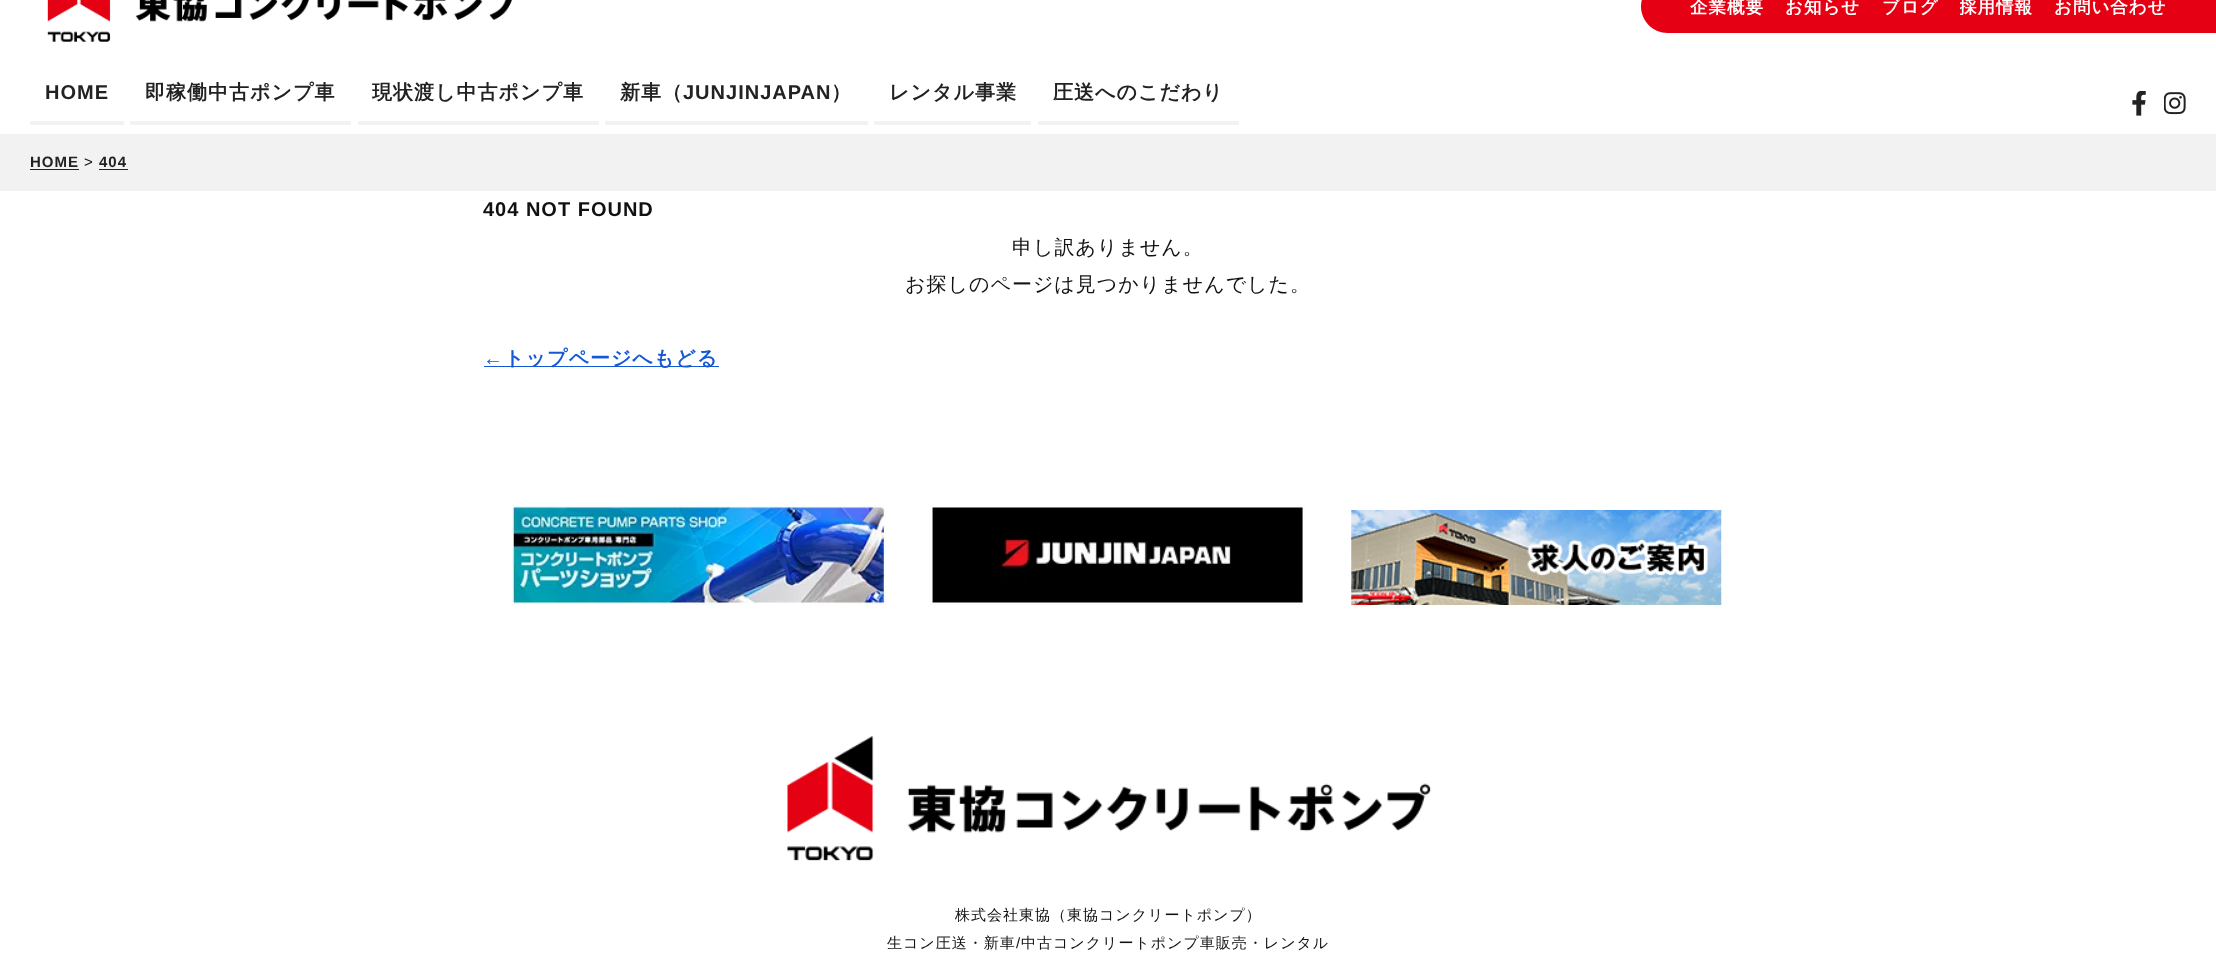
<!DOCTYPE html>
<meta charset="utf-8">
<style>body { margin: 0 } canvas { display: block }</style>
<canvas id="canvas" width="2216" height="968"></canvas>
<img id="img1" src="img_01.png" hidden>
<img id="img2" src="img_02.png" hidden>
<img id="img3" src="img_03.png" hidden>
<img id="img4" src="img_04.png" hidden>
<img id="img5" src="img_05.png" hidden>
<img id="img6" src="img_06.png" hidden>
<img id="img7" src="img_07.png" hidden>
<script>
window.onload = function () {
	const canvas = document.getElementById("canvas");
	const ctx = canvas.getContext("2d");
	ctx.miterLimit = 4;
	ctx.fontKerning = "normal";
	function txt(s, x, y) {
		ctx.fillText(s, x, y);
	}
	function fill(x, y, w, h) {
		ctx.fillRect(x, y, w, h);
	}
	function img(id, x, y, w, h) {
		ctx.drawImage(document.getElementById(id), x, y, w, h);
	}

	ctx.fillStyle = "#FFFFFF";
	fill(0, 0, 2216, 968);
	img("img1", 47, 0, 465, 42);
	ctx.fillStyle = "#E50013";
	ctx.beginPath();
	ctx.moveTo(1667.5, -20);
	ctx.lineTo(2216, -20);
	ctx.lineTo(2216, 33);
	ctx.lineTo(1667.5, 33);
	ctx.bezierCurveTo(1653, 33, 1641, 21, 1641, 6.5);
	ctx.bezierCurveTo(1641, -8, 1653, -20, 1667.5, -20);
	ctx.closePath();
	ctx.fill();
	ctx.fillStyle = "#F2F2F2";
	fill(30, 121, 94, 4);
	fill(130, 121, 221, 4);
	fill(358, 121, 241, 4);
	fill(605, 121, 263, 4);
	fill(874, 121, 157, 4);
	fill(1038, 121, 201, 4);
	img("img2", 2132, 91, 14, 25);
	img("img3", 2164, 92, 22, 23);
	fill(0, 134, 2216, 57);
	ctx.fillStyle = "#222222";
	fill(30, 169, 49, 1);
	fill(99, 169, 29, 1);
	ctx.fillStyle = "#1558D6";
	fill(484, 366, 235, 1);
	img("img4", 511, 505, 375, 100);
	img("img5", 930, 505, 375, 100);
	img("img6", 1351, 510, 371, 95);
	img("img7", 787, 736, 644, 125);
	ctx.letterSpacing = "1px";
	ctx.font = "bold 17.5px WenQuanYi Zen Hei";
	ctx.fillStyle = "#FFFFFF";
	txt("企業概要", 1690, 13);
	ctx.save();
	ctx.beginPath();
	ctx.rect(1785, 0, 76, 15);
	ctx.clip();
	txt("お知らせ", 1785, 13);
	ctx.restore();
	txt("ブログ", 1882, 13);
	ctx.save();
	ctx.beginPath();
	ctx.rect(1960, 0, 74, 15);
	ctx.clip();
	txt("採用情報", 1959, 13);
	ctx.restore();
	ctx.save();
	ctx.beginPath();
	ctx.rect(2055, 0, 113, 15);
	ctx.clip();
	txt("お問い合わせ", 2054, 13);
	ctx.restore();
	ctx.font = "bold 20px Liberation Sans";
	ctx.fillStyle = "#222222";
	txt("HOME", 45, 99);
	ctx.font = "bold 20px WenQuanYi Zen Hei";
	txt("即稼働中古ポンプ車", 145, 99);
	txt("現状渡し中古ポンプ車", 372, 99);
	txt("新車（", 620, 99);
	ctx.font = "bold 20px Liberation Sans";
	txt("JUNJINJAPAN", 683, 99);
	ctx.font = "bold 20px WenQuanYi Zen Hei";
	txt("）", 831, 99);
	txt("レンタル事業", 889, 99);
	txt("圧送へのこだわり", 1053, 99);
	ctx.font = "bold 15px Liberation Sans";
	txt("HOME", 30, 167);
	ctx.font = "15px Liberation Sans";
	ctx.fillStyle = "#111111";
	txt(">", 84, 167);
	ctx.font = "bold 15px Liberation Sans";
	ctx.fillStyle = "#222222";
	txt("404", 99, 167);
	ctx.font = "bold 20px Liberation Sans";
	ctx.fillStyle = "#111111";
	txt("404 NOT FOUND", 483, 216);
	ctx.font = "500 20px WenQuanYi Zen Hei";
	txt("申し訳ありません。", 1012, 254);
	txt("お探しのページは見つかりませんでした。", 905, 291);
	ctx.font = "bold 20px Liberation Sans";
	ctx.fillStyle = "#1558D6";
	txt("←", 483, 365);
	ctx.font = "bold 20px WenQuanYi Zen Hei";
	txt("トップページへもどる", 504, 365);
	ctx.font = "500 15px WenQuanYi Zen Hei";
	ctx.fillStyle = "#111111";
	txt("株式会社東協（東協コンクリートポンプ）", 955, 920);
	txt("生コン圧送・新車", 887, 948);
	ctx.font = "15px Liberation Sans";
	txt("/", 1016, 948);
	ctx.font = "500 15px WenQuanYi Zen Hei";
	txt("中古コンクリートポンプ車販売・レンタル", 1021, 948);
};
</script>
